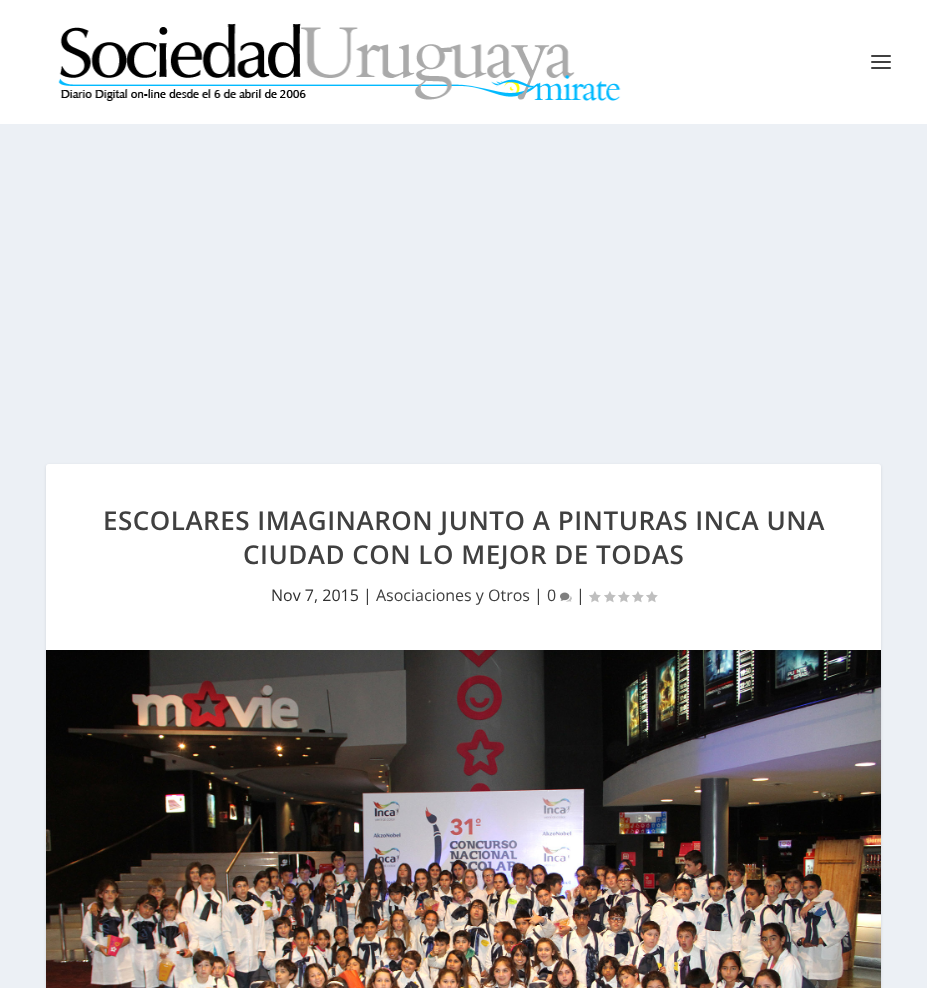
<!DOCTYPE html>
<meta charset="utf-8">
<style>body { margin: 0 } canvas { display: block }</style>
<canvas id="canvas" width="927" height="988"></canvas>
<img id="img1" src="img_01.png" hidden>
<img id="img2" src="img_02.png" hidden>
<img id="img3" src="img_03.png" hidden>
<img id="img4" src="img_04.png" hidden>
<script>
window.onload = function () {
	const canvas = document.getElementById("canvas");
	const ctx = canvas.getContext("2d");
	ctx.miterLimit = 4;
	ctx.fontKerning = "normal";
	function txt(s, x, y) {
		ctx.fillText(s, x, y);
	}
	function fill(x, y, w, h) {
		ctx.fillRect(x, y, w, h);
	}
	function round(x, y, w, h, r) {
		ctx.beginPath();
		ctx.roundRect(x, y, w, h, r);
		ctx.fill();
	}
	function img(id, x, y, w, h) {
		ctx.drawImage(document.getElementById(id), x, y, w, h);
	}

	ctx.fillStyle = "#ECF0F5";
	fill(0, 0, 927, 988);
	ctx.fillStyle = "#FFFFFF";
	fill(0, 0, 927, 124);
	img("img1", 58, 23, 563, 78);
	ctx.fillStyle = "#404040";
	round(871, 55, 20, 2, 1);
	round(871, 61, 20, 2, 1);
	round(871, 67, 20, 2, 1);
	ctx.fillStyle = "rgba(0, 0, 0, 0.1)";
	ctx.filter = "blur(1.5px)";
	ctx.beginPath();
	ctx.roundRect(46, 465, 835, 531, 3);
	ctx.fill();
	ctx.filter = "none";
	ctx.fillStyle = "#FFFFFF";
	round(46, 464, 835, 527, 3);
	img("img2", 560, 592, 12, 10);
	img("img3", 589, 591, 12, 12);
	img("img3", 604, 591, 12, 12);
	img("img3", 618, 591, 12, 12);
	img("img3", 632, 591, 12, 12);
	img("img3", 646, 591, 12, 12);
	img("img4", 46, 650, 835, 338);
	ctx.letterSpacing = "0.5px";
	ctx.font = "600 26px Open Sans";
	ctx.fillStyle = "#404040";
	txt("ESCOLARES IMAGINARON JUNTO A PINTURAS INCA UNA", 103, 530);
	txt("CIUDAD CON LO MEJOR DE TODAS", 243, 564);
	ctx.letterSpacing = "0px";
	ctx.font = "16px Open Sans";
	ctx.fillStyle = "#303030";
	txt("Nov 7, 2015 |", 271, 601);
	ctx.fillStyle = "#404040";
	txt("Asociaciones y Otros", 376, 601);
	ctx.fillStyle = "#303030";
	txt("|", 534, 601);
	ctx.fillStyle = "#404040";
	txt("0", 547, 601);
	ctx.fillStyle = "#303030";
	txt("|", 576, 601);
};
</script>
